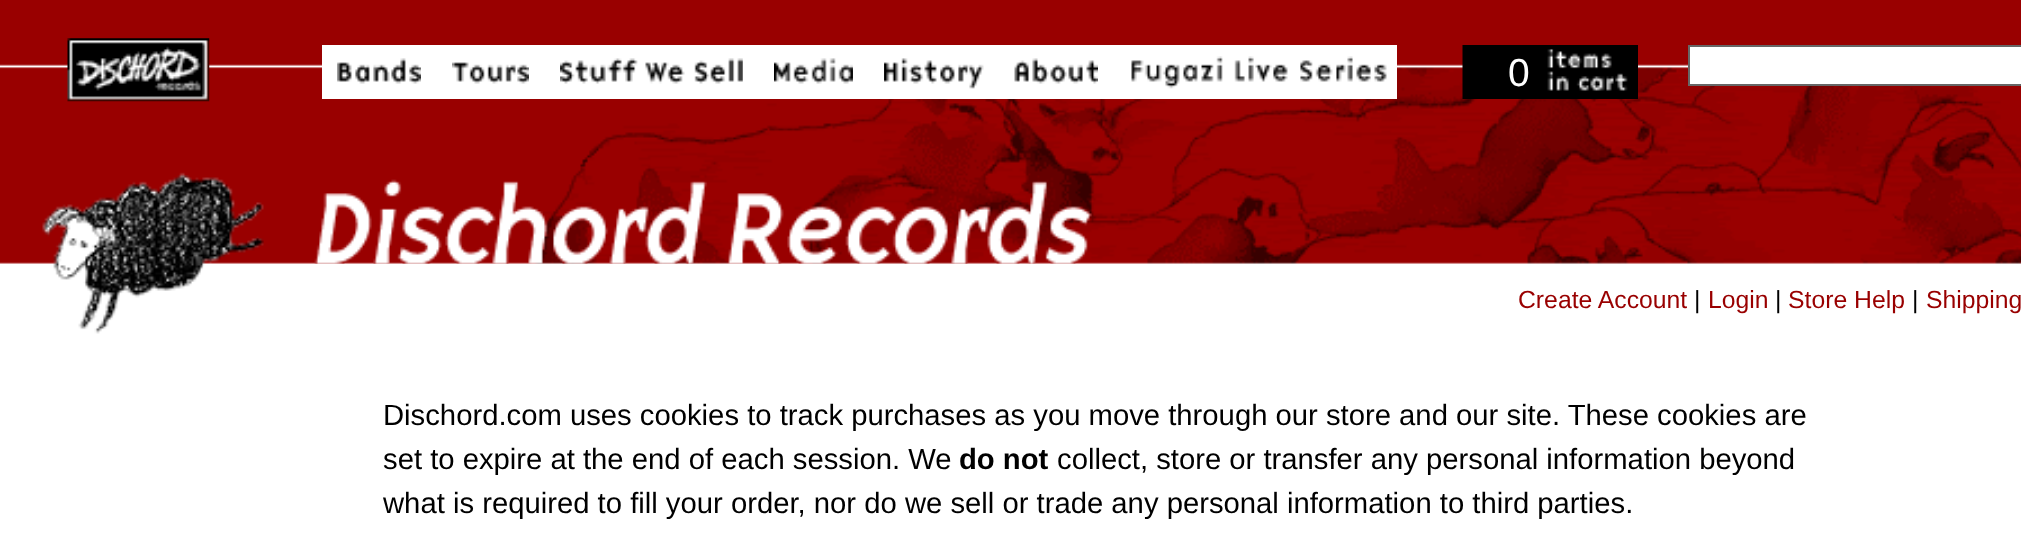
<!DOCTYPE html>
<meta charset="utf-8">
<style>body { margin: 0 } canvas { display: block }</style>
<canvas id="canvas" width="2021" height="541"></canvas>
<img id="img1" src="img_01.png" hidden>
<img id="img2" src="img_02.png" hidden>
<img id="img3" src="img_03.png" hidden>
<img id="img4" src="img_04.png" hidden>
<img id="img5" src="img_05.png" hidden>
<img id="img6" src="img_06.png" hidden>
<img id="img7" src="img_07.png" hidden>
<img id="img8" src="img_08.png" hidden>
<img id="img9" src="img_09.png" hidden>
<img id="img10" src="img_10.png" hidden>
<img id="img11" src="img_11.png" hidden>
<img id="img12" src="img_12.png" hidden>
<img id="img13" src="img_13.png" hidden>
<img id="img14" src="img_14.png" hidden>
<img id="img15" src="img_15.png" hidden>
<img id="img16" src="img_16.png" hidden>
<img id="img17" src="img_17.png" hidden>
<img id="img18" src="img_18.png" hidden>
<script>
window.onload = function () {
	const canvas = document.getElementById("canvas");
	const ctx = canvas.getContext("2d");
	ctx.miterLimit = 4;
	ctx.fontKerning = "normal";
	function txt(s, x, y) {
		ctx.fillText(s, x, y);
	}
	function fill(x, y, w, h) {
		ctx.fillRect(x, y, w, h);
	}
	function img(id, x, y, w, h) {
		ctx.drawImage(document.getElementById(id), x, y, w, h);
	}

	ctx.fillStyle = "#FFFFFF";
	fill(0, 0, 2021, 541);
	img("img1", 0, 0, 2021, 334);
	img("img2", 67, 38, 143, 64);
	fill(322, 45, 1075, 54);
	img("img3", 337, 58, 84, 26);
	img("img4", 337, 62, 84, 20);
	img("img5", 452, 62, 77, 22);
	img("img6", 452, 62, 77, 20);
	img("img7", 560, 58, 183, 26);
	img("img8", 560, 58, 183, 24);
	img("img9", 774, 58, 79, 26);
	img("img10", 852, 66, 1, 16);
	img("img11", 884, 58, 100, 31);
	img("img12", 884, 62, 100, 20);
	img("img13", 1014, 58, 84, 26);
	img("img14", 1014, 66, 1, 16);
	img("img15", 1131, 56, 256, 33);
	img("img16", 1376, 64, 1, 18);
	img("img17", 1462, 45, 176, 54);
	ctx.beginPath();
	ctx.rect(1689, 46, 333, 39);
	ctx.fill();
	ctx.strokeStyle = "#666666";
	ctx.lineWidth = 2;
	ctx.stroke();
	img("img18", 314, 179, 778, 85);
	ctx.font = "39px Liberation Sans";
	txt("0", 1508, 86);
	ctx.font = "24.75px Liberation Sans";
	ctx.fillStyle = "#990000";
	txt("Create Account", 1518, 308);
	ctx.fillStyle = "#000000";
	txt("|", 1694, 308);
	ctx.fillStyle = "#990000";
	txt("Login", 1708, 308);
	ctx.fillStyle = "#000000";
	txt("|", 1775, 308);
	ctx.fillStyle = "#990000";
	txt("Store Help", 1788, 308);
	ctx.fillStyle = "#000000";
	txt("|", 1912, 308);
	ctx.fillStyle = "#990000";
	txt("Shipping", 1926, 308);
	ctx.font = "29.25px Liberation Sans";
	ctx.fillStyle = "#000000";
	txt("Dischord.com uses cookies to track purchases as you move through our store and our site. These cookies are", 383, 425);
	txt("set to expire at the end of each session. We", 383, 469);
	ctx.font = "bold 29.25px Liberation Sans";
	txt("do not", 959, 469);
	ctx.font = "29.25px Liberation Sans";
	txt("collect, store or transfer any personal information beyond", 1057, 469);
	txt("what is required to fill your order, nor do we sell or trade any personal information to third parties.", 383, 513);
};
</script>
